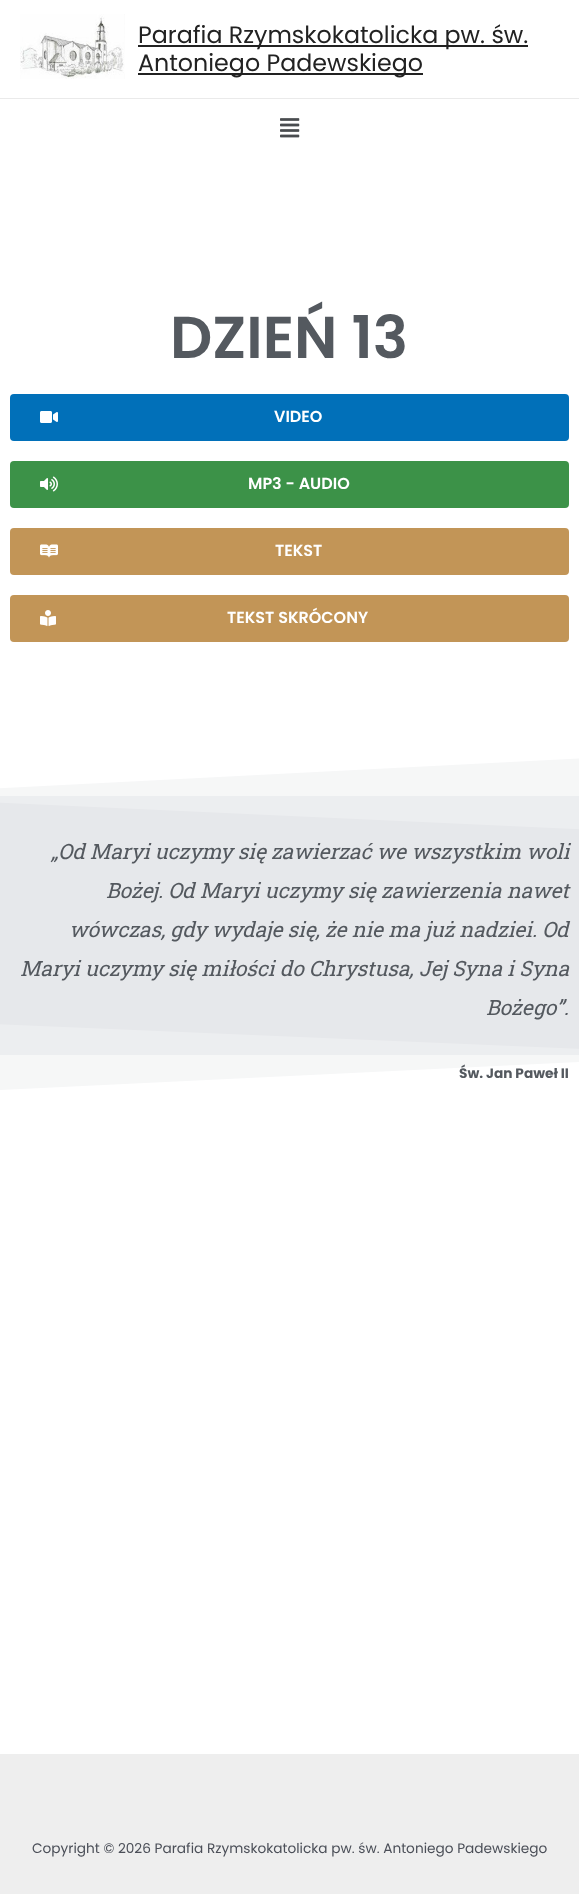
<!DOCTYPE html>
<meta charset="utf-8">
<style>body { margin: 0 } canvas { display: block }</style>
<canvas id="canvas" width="579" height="1894"></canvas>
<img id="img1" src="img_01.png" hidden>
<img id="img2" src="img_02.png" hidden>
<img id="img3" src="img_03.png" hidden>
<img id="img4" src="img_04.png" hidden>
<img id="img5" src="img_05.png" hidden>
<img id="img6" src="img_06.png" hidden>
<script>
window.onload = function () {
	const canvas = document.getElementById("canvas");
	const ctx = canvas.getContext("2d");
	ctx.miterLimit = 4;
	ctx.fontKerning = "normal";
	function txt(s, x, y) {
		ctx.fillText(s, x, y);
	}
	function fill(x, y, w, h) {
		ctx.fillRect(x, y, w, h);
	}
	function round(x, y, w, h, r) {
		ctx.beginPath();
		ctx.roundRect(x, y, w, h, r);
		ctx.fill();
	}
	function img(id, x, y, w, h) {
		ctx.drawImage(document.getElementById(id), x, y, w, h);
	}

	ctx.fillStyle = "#FFFFFF";
	fill(0, 0, 579, 1894);
	ctx.fillStyle = "#EAEAEA";
	fill(0, 98, 579, 1);
	img("img1", 20, 14, 105, 65);
	ctx.fillStyle = "#222222";
	fill(138, 45, 390, 2);
	fill(138, 73, 285, 2);
	img("img2", 280, 118, 20, 20);
	ctx.fillStyle = "#0170B9";
	round(10, 394, 559, 47, 4);
	img("img3", 40, 411, 18, 12);
	ctx.fillStyle = "#3C9248";
	round(10, 461, 559, 47, 4);
	img("img4", 40, 476, 18, 16);
	ctx.fillStyle = "#C29557";
	round(10, 528, 559, 47, 4);
	img("img5", 40, 544, 18, 14);
	round(10, 595, 559, 47, 4);
	img("img6", 40, 610, 16, 16);
	ctx.fillStyle = "#F3F4F5";
	fill(0, 758, 579, 38);
	ctx.fillStyle = "#FFFFFF";
	ctx.beginPath();
	ctx.moveTo(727, 751);
	ctx.lineTo(-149, 751);
	ctx.lineTo(-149, 796);
	ctx.closePath();
	ctx.fill();
	ctx.fillStyle = "#E6E8EB";
	fill(0, 796, 579, 259);
	ctx.fillStyle = "rgba(255, 255, 255, 0.25)";
	ctx.beginPath();
	ctx.moveTo(-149, 751);
	ctx.lineTo(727, 751);
	ctx.lineTo(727, 836);
	ctx.lineTo(-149, 796);
	ctx.closePath();
	ctx.fill();
	ctx.fillStyle = "#F3F4F5";
	fill(0, 1055, 579, 35);
	ctx.fillStyle = "#FFFFFF";
	ctx.beginPath();
	ctx.moveTo(-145, 1097);
	ctx.lineTo(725, 1097);
	ctx.lineTo(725, 1055);
	ctx.closePath();
	ctx.fill();
	ctx.fillStyle = "rgba(255, 255, 255, 0.25)";
	ctx.beginPath();
	ctx.moveTo(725, 1097);
	ctx.lineTo(-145, 1097);
	ctx.lineTo(-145, 1018);
	ctx.lineTo(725, 1055);
	ctx.closePath();
	ctx.fill();
	ctx.fillStyle = "#EEEEEE";
	fill(0, 1754, 579, 140);
	ctx.font = "23.75px Poppins";
	ctx.fillStyle = "#222222";
	txt("Parafia Rzymskokatolicka pw. św.", 138, 43);
	txt("Antoniego Padewskiego", 138, 71);
	ctx.font = "600 59px Poppins";
	ctx.fillStyle = "#54595F";
	txt("DZIEŃ 13", 170, 358);
	ctx.font = "600 16px Poppins";
	ctx.fillStyle = "#FFFFFF";
	txt("VIDEO", 274, 422);
	txt("MP3 - AUDIO", 248, 489);
	txt("TEKST", 275, 556);
	txt("TEKST SKRÓCONY", 227, 623);
	ctx.font = "italic 21px Roboto Slab";
	ctx.fillStyle = "#54595F";
	txt("„Od Maryi uczymy się zawierzać we wszystkim woli", 51, 859);
	txt("Bożej. Od Maryi uczymy się zawierzenia nawet", 106, 898);
	txt("wówczas, gdy wydaje się, że nie ma już nadziei. Od", 69, 937);
	txt("Maryi uczymy się miłości do Chrystusa, Jej Syna i Syna", 20, 976);
	txt("Bożego”.", 486, 1015);
	ctx.font = "bold 13.7px Poppins";
	txt("Św. Jan Paweł II", 459, 1078);
	ctx.font = "13.7px Poppins";
	ctx.fillStyle = "#4B4F58";
	txt("Copyright © 2026 Parafia Rzymskokatolicka pw. św. Antoniego Padewskiego", 32, 1853);
};
</script>
